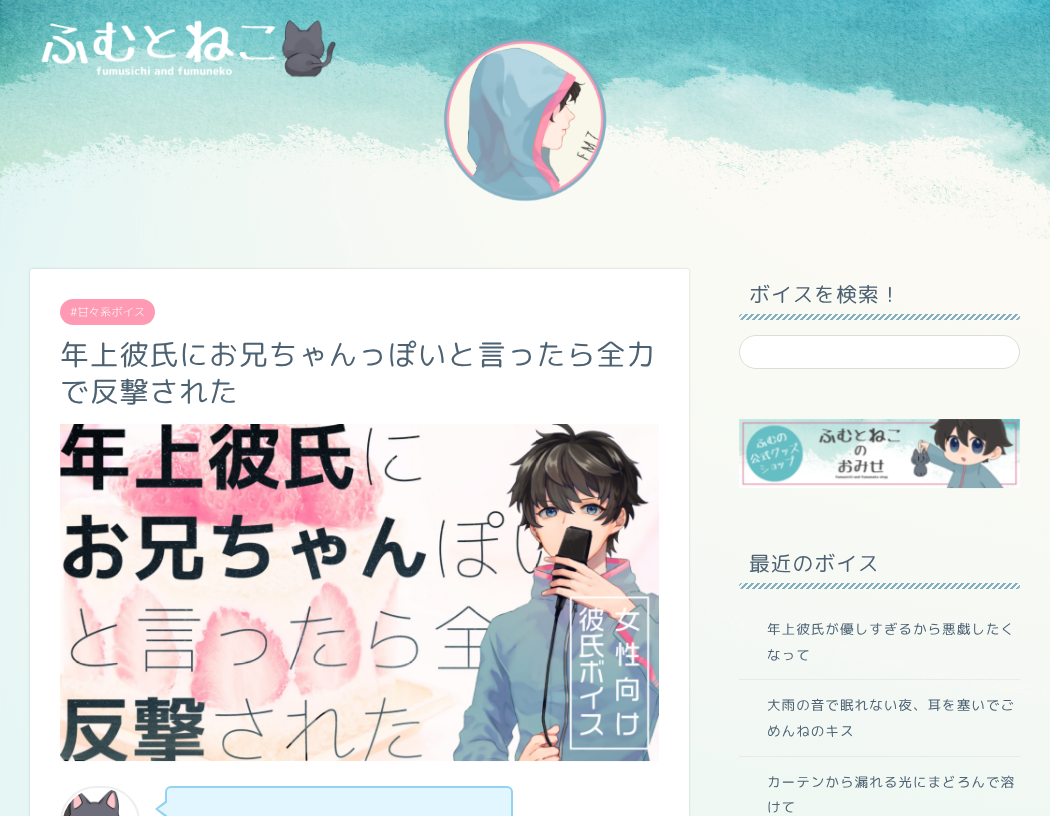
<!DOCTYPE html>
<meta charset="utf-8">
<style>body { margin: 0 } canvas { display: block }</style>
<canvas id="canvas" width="1050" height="816"></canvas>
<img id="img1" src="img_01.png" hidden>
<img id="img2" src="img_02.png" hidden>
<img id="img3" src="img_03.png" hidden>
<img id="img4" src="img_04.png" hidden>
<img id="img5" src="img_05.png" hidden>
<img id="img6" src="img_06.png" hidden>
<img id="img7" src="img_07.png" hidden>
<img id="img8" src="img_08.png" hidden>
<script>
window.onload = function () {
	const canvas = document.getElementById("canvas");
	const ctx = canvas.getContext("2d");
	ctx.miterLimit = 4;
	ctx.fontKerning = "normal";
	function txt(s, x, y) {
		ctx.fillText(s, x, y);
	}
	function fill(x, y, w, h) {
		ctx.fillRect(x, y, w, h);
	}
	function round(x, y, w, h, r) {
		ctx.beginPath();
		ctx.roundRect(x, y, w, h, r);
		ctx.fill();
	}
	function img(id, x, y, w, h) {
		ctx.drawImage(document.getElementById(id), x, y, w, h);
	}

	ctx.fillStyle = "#FFFAF2";
	fill(0, 0, 1050, 816);
	img("img1", 0, 45, 1050, 771);
	img("img2", 0, 0, 1050, 239);
	img("img3", 41, 20, 295, 58);
	ctx.fillStyle = "rgba(0, 0, 0, 0.18)";
	ctx.filter = "blur(1px)";
	ctx.beginPath();
	ctx.roundRect(30, 269, 659, 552, 2);
	ctx.fill();
	ctx.filter = "none";
	ctx.fillStyle = "#FFFFFF";
	round(30, 269, 659, 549, 2);
	ctx.fillStyle = "#FF9AB5";
	round(60, 299, 95, 26, 13);
	img("img4", 60, 424, 599, 338);
	ctx.beginPath();
	ctx.roundRect(61, 787, 78, 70, 39);
	ctx.strokeStyle = "#EEEEEE";
	ctx.lineWidth = 2;
	ctx.stroke();
	img("img5", 63, 790, 60, 26);
	ctx.fillStyle = "#93D2F0";
	ctx.beginPath();
	ctx.moveTo(165, 801);
	ctx.lineTo(165, 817);
	ctx.lineTo(155, 809);
	ctx.closePath();
	ctx.fill();
	ctx.fillStyle = "#E2F6FF";
	ctx.beginPath();
	ctx.roundRect(166, 787, 346, 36, 5);
	ctx.fill();
	ctx.strokeStyle = "#93D2F0";
	ctx.stroke();
	ctx.beginPath();
	ctx.moveTo(168, 802);
	ctx.lineTo(168, 816);
	ctx.lineTo(158, 809);
	ctx.closePath();
	ctx.fill();
	img("img6", 739, 314, 281, 6);
	ctx.fillStyle = "#FFFFFF";
	ctx.beginPath();
	ctx.roundRect(739.5, 335.5, 280, 33, 16.5);
	ctx.fill();
	ctx.strokeStyle = "#DDDDDD";
	ctx.lineWidth = 1;
	ctx.stroke();
	img("img7", 739, 419, 281, 70);
	img("img8", 739, 583, 281, 6);
	ctx.fillStyle = "rgba(0, 0, 0, 0.05)";
	fill(739, 679, 281, 1);
	fill(739, 756, 281, 1);
	ctx.font = "300 11.25px 'Rounded Mplus 1c'";
	ctx.fillStyle = "#FFFFFF";
	txt("#甘々系ボイス", 70, 316);
	ctx.letterSpacing = "1px";
	ctx.font = "28.8px 'Rounded Mplus 1c'";
	ctx.fillStyle = "#4C6172";
	txt("年上彼氏にお兄ちゃんっぽいと言ったら全力", 60, 365);
	txt("で反撃された", 60, 402);
	ctx.font = "20.75px 'Rounded Mplus 1c'";
	txt("ボイスを検索！", 749, 302);
	txt("最近のボイス", 749, 571);
	ctx.font = "13.6px 'Rounded Mplus 1c'";
	txt("年上彼氏が優しすぎるから悪戯したく", 767, 634);
	txt("なって", 767, 660);
	txt("大雨の音で眠れない夜、耳を塞いでご", 767, 710);
	txt("めんねのキス", 767, 736);
	txt("カーテンから漏れる光にまどろんで溶", 767, 787);
	txt("けて", 767, 812);
};
</script>
